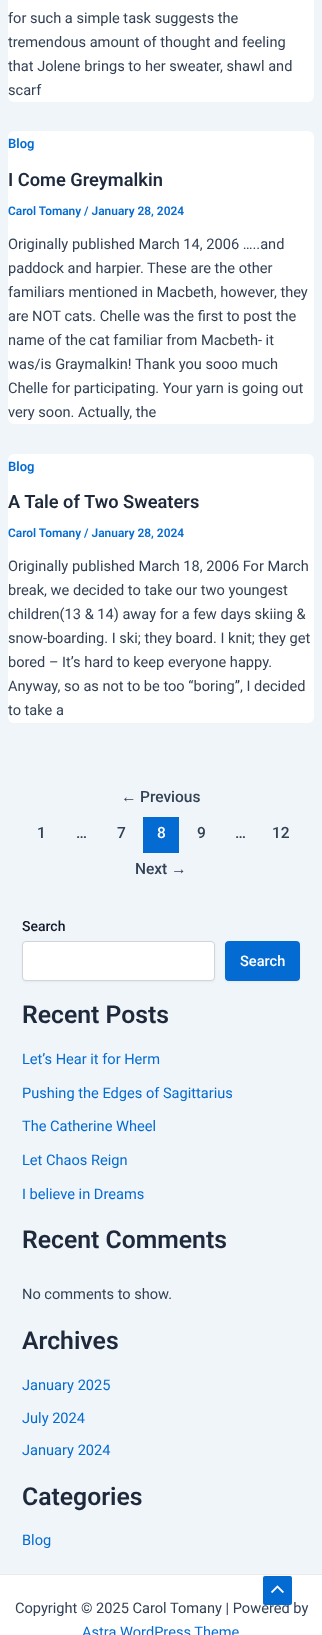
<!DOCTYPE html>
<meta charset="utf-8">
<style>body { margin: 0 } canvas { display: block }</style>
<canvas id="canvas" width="322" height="1635"></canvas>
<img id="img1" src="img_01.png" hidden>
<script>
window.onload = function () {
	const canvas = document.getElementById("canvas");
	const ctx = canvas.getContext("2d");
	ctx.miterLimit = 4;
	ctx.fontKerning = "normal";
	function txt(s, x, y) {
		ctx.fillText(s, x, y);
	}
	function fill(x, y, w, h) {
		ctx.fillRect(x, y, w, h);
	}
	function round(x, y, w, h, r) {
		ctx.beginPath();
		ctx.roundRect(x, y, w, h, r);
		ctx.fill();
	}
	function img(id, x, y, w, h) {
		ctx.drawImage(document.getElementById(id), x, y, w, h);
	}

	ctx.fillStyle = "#F0F5FA";
	fill(0, 0, 322, 1635);
	ctx.fillStyle = "#FFFFFF";
	round(8, -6, 306, 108, 6);
	round(8, 131, 306, 293, 6);
	round(8, 454, 306, 269, 6);
	ctx.fillStyle = "#046BD2";
	fill(143, 817, 36, 36);
	ctx.fillStyle = "rgba(0, 0, 0, 0.05)";
	ctx.filter = "blur(1px)";
	ctx.beginPath();
	ctx.roundRect(22, 942, 193, 40, 4);
	ctx.fill();
	ctx.filter = "none";
	ctx.fillStyle = "#FFFFFF";
	ctx.beginPath();
	ctx.roundRect(22.5, 941.5, 192, 39, 3.5);
	ctx.fill();
	ctx.strokeStyle = "#D1D5DB";
	ctx.stroke();
	ctx.fillStyle = "rgba(0, 0, 0, 0.05)";
	ctx.filter = "blur(1px)";
	ctx.beginPath();
	ctx.roundRect(225, 942, 75, 40, 4);
	ctx.fill();
	ctx.filter = "none";
	ctx.fillStyle = "#046BD2";
	round(225, 941, 75, 40, 4);
	ctx.fillStyle = "#FFFFFF";
	fill(0, 1575, 322, 60);
	ctx.fillStyle = "#EAEAEA";
	fill(0, 1574, 322, 1);
	ctx.font = "14.6px Roboto";
	ctx.fillStyle = "#334155";
	txt("for such a simple task suggests the", 8, 23);
	txt("tremendous amount of thought and feeling", 8, 47);
	txt("that Jolene brings to her sweater, shawl and", 8, 71);
	txt("scarf", 8, 95);
	ctx.font = "600 13px Roboto";
	ctx.fillStyle = "#046BD2";
	txt("Blog", 8, 148);
	ctx.font = "600 18.25px Roboto";
	ctx.fillStyle = "#1E293B";
	txt("I Come Greymalkin", 8, 186);
	ctx.font = "600 11.9px Roboto";
	ctx.fillStyle = "#046BD2";
	txt("Carol Tomany / January 28, 2024", 8, 215);
	ctx.font = "14.6px Roboto";
	ctx.fillStyle = "#334155";
	txt("Originally published March 14, 2006 …..and", 8, 249);
	txt("paddock and harpier. These are the other", 8, 273);
	txt("familiars mentioned in Macbeth, however, they", 8, 297);
	txt("are NOT cats. Chelle was the first to post the", 8, 321);
	txt("name of the cat familiar from Macbeth- it", 8, 345);
	txt("was/is Graymalkin! Thank you sooo much", 8, 369);
	txt("Chelle for participating. Your yarn is going out", 8, 393);
	txt("very soon. Actually, the", 8, 417);
	ctx.font = "600 13px Roboto";
	ctx.fillStyle = "#046BD2";
	txt("Blog", 8, 471);
	ctx.font = "600 18.25px Roboto";
	ctx.fillStyle = "#1E293B";
	txt("A Tale of Two Sweaters", 8, 508);
	ctx.font = "600 11.9px Roboto";
	ctx.fillStyle = "#046BD2";
	txt("Carol Tomany / January 28, 2024", 8, 537);
	ctx.font = "14.6px Roboto";
	ctx.fillStyle = "#334155";
	txt("Originally published March 18, 2006 For March", 8, 571);
	txt("break, we decided to take our two youngest", 8, 595);
	txt("children(13 & 14) away for a few days skiing &", 8, 619);
	txt("snow-boarding. I ski; they board. I knit; they get", 8, 643);
	txt("bored – It’s hard to keep everyone happy.", 8, 667);
	txt("Anyway, so as not to be too “boring”, I decided", 8, 691);
	txt("to take a", 8, 715);
	ctx.font = "15.5px Liberation Sans";
	txt("←", 121, 802);
	ctx.font = "500 15.5px Roboto";
	txt("Previous", 140, 802);
	txt("1", 37, 838);
	txt("…", 76, 838);
	txt("7", 117, 838);
	ctx.fillStyle = "#FFFFFF";
	txt("8", 157, 838);
	ctx.fillStyle = "#334155";
	txt("9", 197, 838);
	txt("…", 235, 838);
	txt("12", 272, 838);
	txt("Next", 135, 874);
	ctx.font = "15.5px Liberation Sans";
	txt("→", 171, 874);
	ctx.font = "500 14px Roboto";
	ctx.fillStyle = "#111827";
	txt("Search", 22, 931);
	ctx.font = "500 14.6px Roboto";
	ctx.fillStyle = "#FFFFFF";
	txt("Search", 240, 966);
	ctx.font = "600 24.75px Roboto";
	ctx.fillStyle = "#1E293B";
	txt("Recent Posts", 22, 1023);
	ctx.font = "14.6px Roboto";
	ctx.fillStyle = "#046BD2";
	txt("Let’s Hear it for Herm", 22, 1064);
	txt("Pushing the Edges of Sagittarius", 22, 1098);
	txt("The Catherine Wheel", 22, 1131);
	txt("Let Chaos Reign", 22, 1165);
	txt("I believe in Dreams", 22, 1199);
	ctx.font = "600 24.75px Roboto";
	ctx.fillStyle = "#1E293B";
	txt("Recent Comments", 22, 1248);
	ctx.font = "14.6px Roboto";
	ctx.fillStyle = "#334155";
	txt("No comments to show.", 22, 1299);
	ctx.font = "600 24.75px Roboto";
	ctx.fillStyle = "#1E293B";
	txt("Archives", 22, 1349);
	ctx.font = "14.6px Roboto";
	ctx.fillStyle = "#046BD2";
	txt("January 2025", 22, 1390);
	txt("July 2024", 22, 1423);
	txt("January 2024", 22, 1455);
	ctx.font = "600 24.75px Roboto";
	ctx.fillStyle = "#1E293B";
	txt("Categories", 22, 1505);
	ctx.font = "14.6px Roboto";
	ctx.fillStyle = "#046BD2";
	txt("Blog", 22, 1545);
	ctx.fillStyle = "#334155";
	txt("Copyright © 2025 Carol Tomany | Powered by", 15, 1613);
	ctx.fillStyle = "#046BD2";
	txt("Astra WordPress Theme", 82, 1637);
	round(263, 1576, 29, 29, 2);
	img("img1", 271, 1585, 13, 9);
};
</script>
